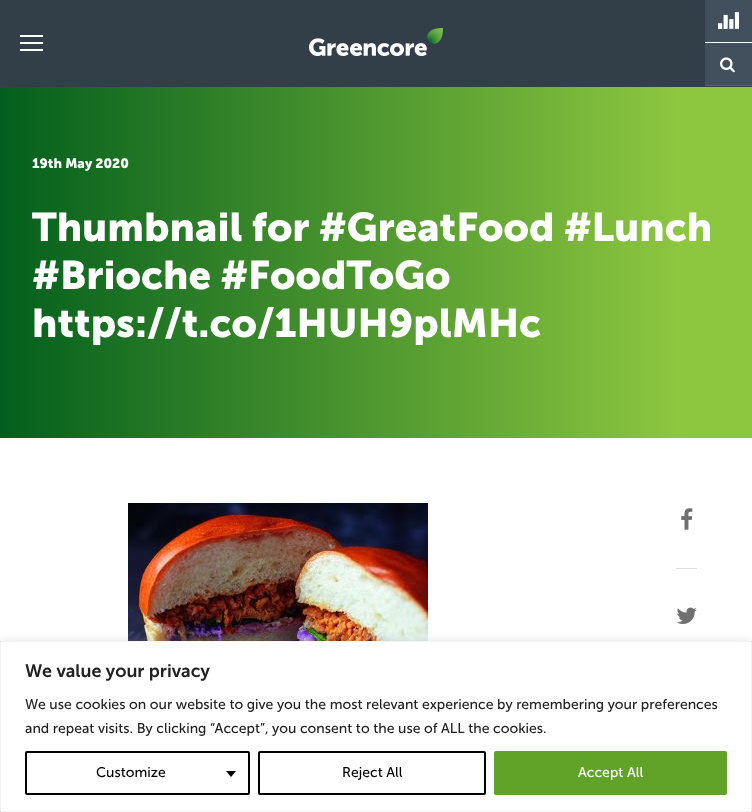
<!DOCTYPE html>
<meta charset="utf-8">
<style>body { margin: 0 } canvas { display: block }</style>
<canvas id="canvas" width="752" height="812"></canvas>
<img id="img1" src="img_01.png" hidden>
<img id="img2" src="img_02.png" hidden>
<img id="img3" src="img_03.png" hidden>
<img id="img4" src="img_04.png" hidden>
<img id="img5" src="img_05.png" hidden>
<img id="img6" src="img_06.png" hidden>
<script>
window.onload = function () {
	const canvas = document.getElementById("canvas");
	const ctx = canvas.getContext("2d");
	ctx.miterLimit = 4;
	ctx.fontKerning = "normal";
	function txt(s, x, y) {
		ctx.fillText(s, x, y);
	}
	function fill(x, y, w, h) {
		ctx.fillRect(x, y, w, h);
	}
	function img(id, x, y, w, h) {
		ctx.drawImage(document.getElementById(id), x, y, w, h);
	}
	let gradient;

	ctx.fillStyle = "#333F48";
	fill(0, 0, 752, 812);
	ctx.fillStyle = "#FFFFFF";
	fill(20, 42, 23, 2);
	fill(20, 35, 23, 2);
	fill(20, 49, 23, 2);
	img("img1", 309, 28, 134, 28);
	ctx.fillStyle = "#41505C";
	fill(705, 0, 47, 85);
	ctx.fillStyle = "#FFFFFF";
	fill(705, 42, 47, 1);
	img("img2", 718, 12, 21, 17);
	ctx.fillStyle = "#685D64";
	fill(705, 85, 47, 1);
	img("img3", 720, 57, 15, 16);
	ctx.fillStyle = "#FFFFFF";
	fill(0, 438, 752, 203);
	gradient = ctx.createLinearGradient(0, 263, 752, 263);
	gradient.addColorStop(0, "#035F1D");
	gradient.addColorStop(0.9, "#8DC63F");
	ctx.fillStyle = gradient;
	fill(0, 87, 752, 351);
	img("img4", 128, 503, 300, 138);
	ctx.fillStyle = "#E0E0E0";
	fill(676, 568, 21, 1);
	img("img5", 681, 508, 12, 22);
	img("img6", 676, 607, 21, 17);
	ctx.fillStyle = "rgba(172, 171, 171, 0.3)";
	ctx.filter = "blur(5px)";
	ctx.beginPath();
	ctx.rect(0, 640, 752, 171);
	ctx.fill();
	ctx.filter = "none";
	ctx.fillStyle = "#FFFFFF";
	ctx.beginPath();
	ctx.rect(0.5, 641.5, 751, 170);
	ctx.fill();
	ctx.strokeStyle = "#F4F4F4";
	ctx.stroke();
	ctx.beginPath();
	ctx.roundRect(26, 752, 223, 42, 1);
	ctx.strokeStyle = "#000000";
	ctx.lineWidth = 2;
	ctx.stroke();
	ctx.fillStyle = "#000000";
	ctx.beginPath();
	ctx.moveTo(226, 771);
	ctx.lineTo(236, 771);
	ctx.lineTo(231, 777);
	ctx.closePath();
	ctx.fill();
	ctx.beginPath();
	ctx.roundRect(259, 752, 226, 42, 1);
	ctx.stroke();
	ctx.fillStyle = "#61A229";
	ctx.beginPath();
	ctx.roundRect(495, 752, 231, 42, 1);
	ctx.fill();
	ctx.strokeStyle = "#61A229";
	ctx.stroke();
	ctx.font = "bold 13.5px 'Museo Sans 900'";
	ctx.fillStyle = "#FFFFFF";
	txt("19th May 2020", 32, 168);
	ctx.font = "bold 40px 'Museo Sans 900'";
	txt("Thumbnail for #GreatFood #Lunch", 32, 241);
	txt("#Brioche #FoodToGo", 32, 289);
	txt("https://t.co/1HUH9plMHc", 32, 337);
	ctx.font = "600 18px 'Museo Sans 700'";
	ctx.fillStyle = "#212121";
	txt("We value your privacy", 25, 677);
	ctx.font = "14px 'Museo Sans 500'";
	txt("We use cookies on our website to give you the most relevant experience by remembering your preferences", 25, 709);
	txt("and repeat visits. By clicking “Accept”, you consent to the use of ALL the cookies.", 25, 733);
	ctx.fillStyle = "#000000";
	txt("Customize", 96, 777);
	txt("Reject All", 342, 777);
	ctx.fillStyle = "#FFFFFF";
	txt("Accept All", 578, 777);
};
</script>
